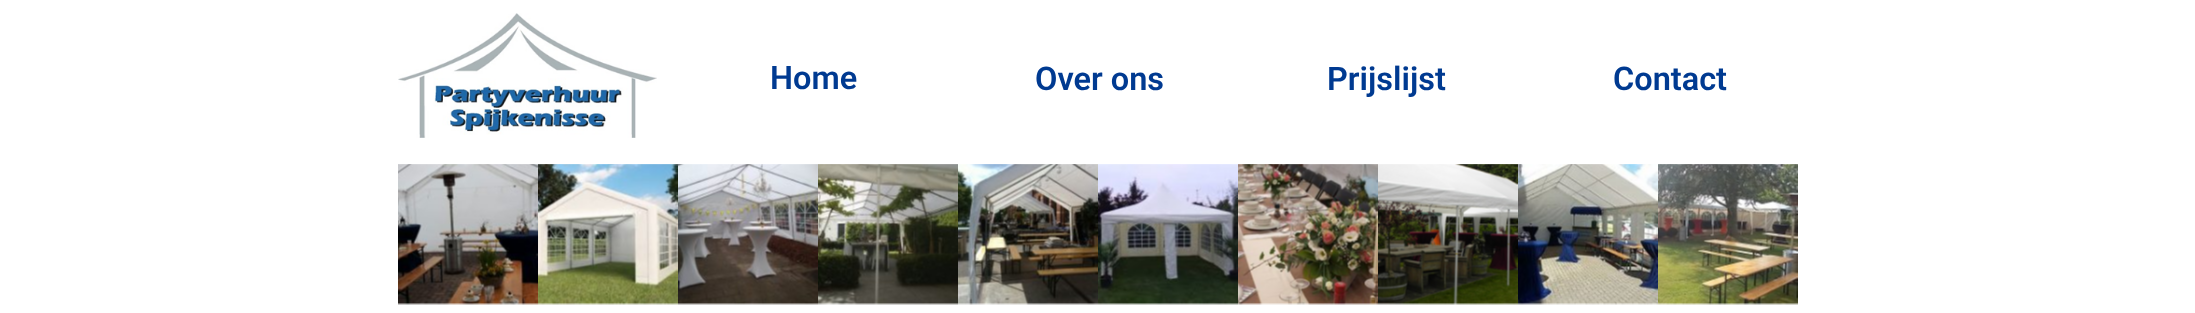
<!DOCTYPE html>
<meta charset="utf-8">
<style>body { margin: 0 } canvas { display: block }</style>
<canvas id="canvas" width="2195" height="313"></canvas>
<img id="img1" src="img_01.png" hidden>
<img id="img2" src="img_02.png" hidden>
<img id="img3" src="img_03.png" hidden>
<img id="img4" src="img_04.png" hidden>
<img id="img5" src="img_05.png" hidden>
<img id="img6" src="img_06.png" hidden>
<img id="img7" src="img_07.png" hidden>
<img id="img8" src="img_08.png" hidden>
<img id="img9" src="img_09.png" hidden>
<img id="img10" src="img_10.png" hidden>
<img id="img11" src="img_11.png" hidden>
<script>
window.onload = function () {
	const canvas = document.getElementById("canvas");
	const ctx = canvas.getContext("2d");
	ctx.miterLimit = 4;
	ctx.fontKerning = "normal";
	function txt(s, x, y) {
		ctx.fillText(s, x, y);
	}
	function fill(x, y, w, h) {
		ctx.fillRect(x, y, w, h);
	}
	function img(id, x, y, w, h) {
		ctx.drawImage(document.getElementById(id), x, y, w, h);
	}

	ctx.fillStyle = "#FFFFFF";
	fill(0, 0, 2195, 313);
	img("img1", 398, 13, 259, 125);
	img("img2", 398, 164, 140, 141);
	img("img3", 538, 164, 140, 141);
	img("img4", 678, 164, 140, 141);
	img("img5", 818, 164, 140, 141);
	img("img6", 958, 164, 140, 141);
	img("img7", 1098, 164, 140, 141);
	img("img8", 1238, 164, 140, 141);
	img("img9", 1378, 164, 140, 141);
	img("img10", 1518, 164, 140, 141);
	img("img11", 1658, 164, 140, 141);
	ctx.font = "600 32.5px Roboto";
	ctx.fillStyle = "#003A91";
	txt("Home", 770, 89);
	txt("Over ons", 1035, 90);
	txt("Prijslijst", 1327, 90);
	txt("Contact", 1613, 90);
};
</script>
